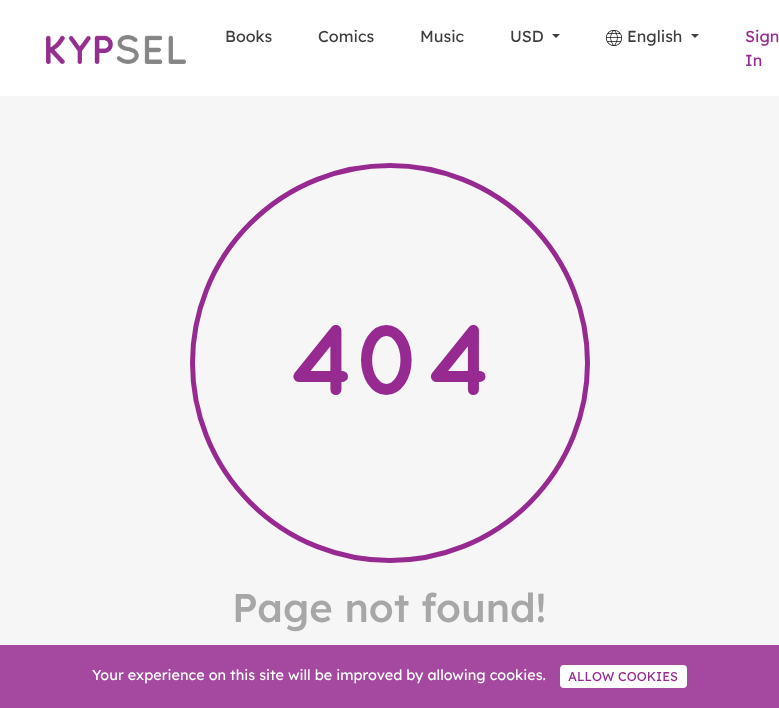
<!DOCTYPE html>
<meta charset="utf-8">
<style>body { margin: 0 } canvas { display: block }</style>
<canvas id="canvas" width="779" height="708"></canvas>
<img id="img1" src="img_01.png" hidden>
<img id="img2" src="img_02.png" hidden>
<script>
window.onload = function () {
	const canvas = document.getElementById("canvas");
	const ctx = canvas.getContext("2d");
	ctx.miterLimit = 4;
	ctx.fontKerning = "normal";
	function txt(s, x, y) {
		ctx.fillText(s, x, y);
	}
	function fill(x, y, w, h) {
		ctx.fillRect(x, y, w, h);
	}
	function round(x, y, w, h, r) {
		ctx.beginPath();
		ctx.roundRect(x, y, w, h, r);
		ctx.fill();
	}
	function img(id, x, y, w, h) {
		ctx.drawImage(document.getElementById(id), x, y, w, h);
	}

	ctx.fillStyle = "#F6F6F6";
	fill(0, 0, 779, 708);
	ctx.fillStyle = "#FFFFFF";
	fill(0, 0, 779, 96);
	img("img1", 46, 35, 140, 29);
	ctx.fillStyle = "#3F3F3F";
	ctx.beginPath();
	ctx.moveTo(552, 34);
	ctx.lineTo(560, 34);
	ctx.lineTo(556, 38);
	ctx.closePath();
	ctx.fill();
	img("img2", 606, 30, 16, 16);
	ctx.beginPath();
	ctx.moveTo(691, 34);
	ctx.lineTo(699, 34);
	ctx.lineTo(695, 38);
	ctx.closePath();
	ctx.fill();
	ctx.beginPath();
	ctx.arc(390, 363, 197.5, 0, Math.PI * 2);
	ctx.strokeStyle = "#962A90";
	ctx.lineWidth = 5;
	ctx.stroke();
	ctx.fillStyle = "#A4499F";
	fill(0, 645, 779, 63);
	ctx.fillStyle = "#FFFFFF";
	round(560, 665, 127, 23, 4);
	ctx.font = "16px Lexend";
	ctx.fillStyle = "#3F3F3F";
	txt("Books", 225, 42);
	txt("Comics", 318, 42);
	txt("Music", 420, 42);
	txt("USD", 510, 42);
	txt("English", 627, 42);
	ctx.fillStyle = "#962A90";
	txt("Sign", 745, 42);
	txt("In", 745, 66);
	ctx.font = "bold 100px Quicksand";
	txt("404", 288, 395);
	ctx.font = "500 40px Lexend";
	ctx.fillStyle = "#A7A7A7";
	txt("Page not found!", 232, 622);
	ctx.font = "14.4px Lexend";
	ctx.fillStyle = "#FFFFFF";
	txt("Your experience on this site will be improved by allowing cookies.", 92, 680);
	ctx.font = "12.75px Lexend";
	ctx.fillStyle = "#962A90";
	txt("ALLOW COOKIES", 568, 681);
};
</script>
